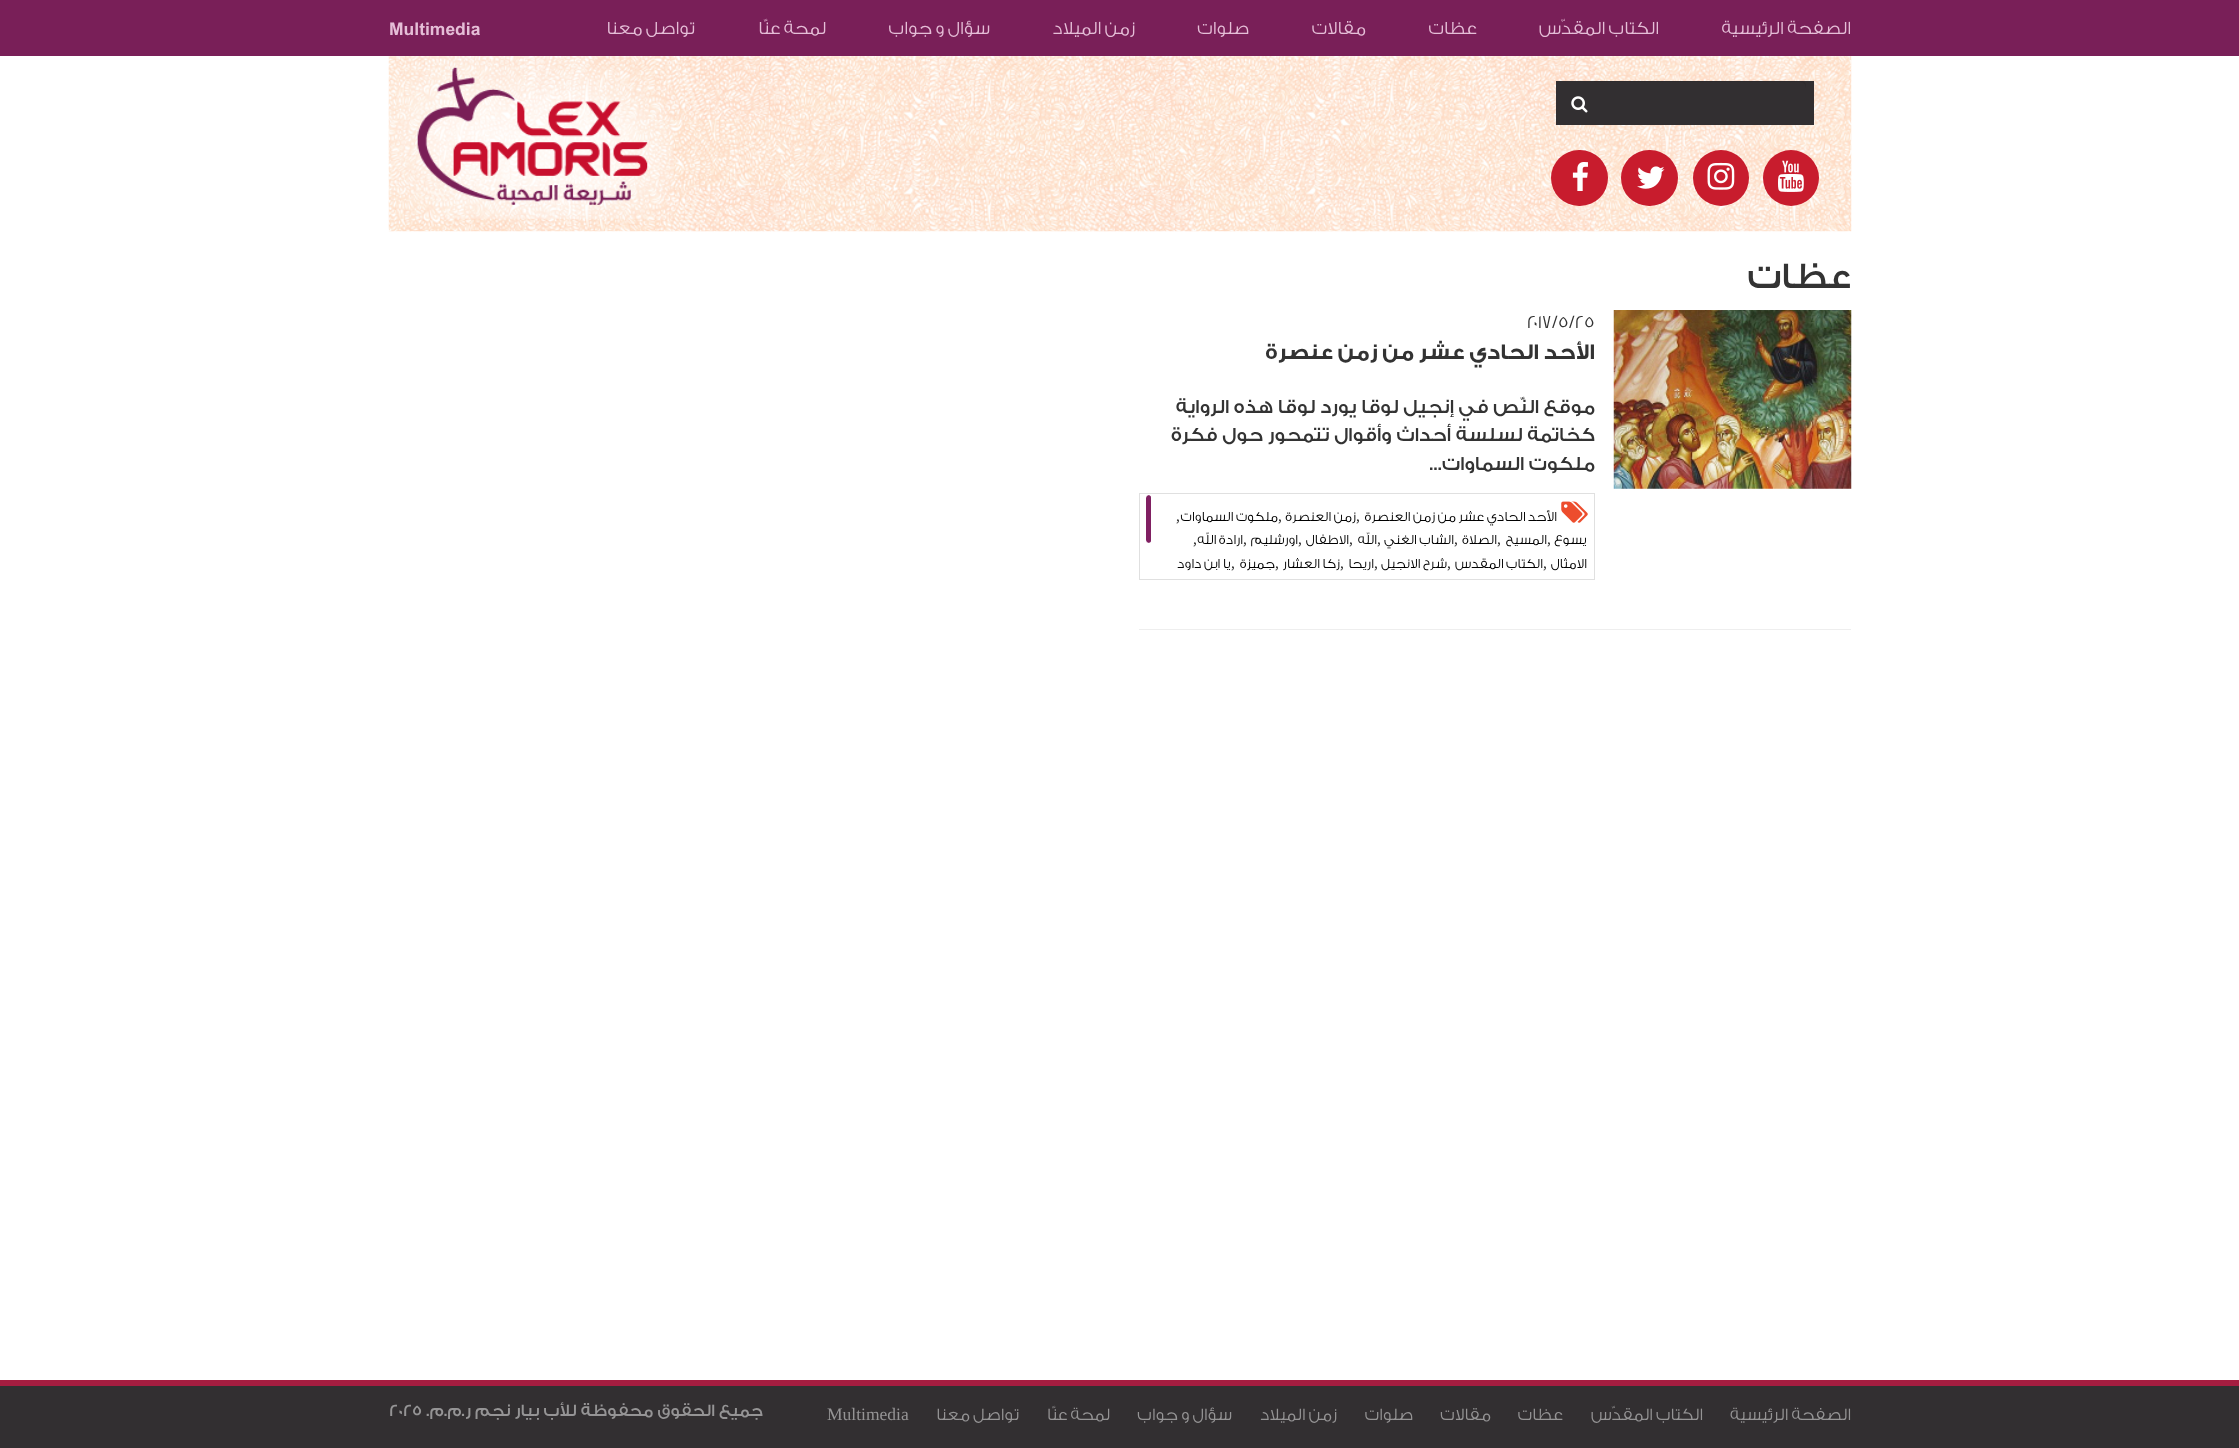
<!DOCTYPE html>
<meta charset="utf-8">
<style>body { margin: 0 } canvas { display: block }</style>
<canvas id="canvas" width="2239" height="1448"></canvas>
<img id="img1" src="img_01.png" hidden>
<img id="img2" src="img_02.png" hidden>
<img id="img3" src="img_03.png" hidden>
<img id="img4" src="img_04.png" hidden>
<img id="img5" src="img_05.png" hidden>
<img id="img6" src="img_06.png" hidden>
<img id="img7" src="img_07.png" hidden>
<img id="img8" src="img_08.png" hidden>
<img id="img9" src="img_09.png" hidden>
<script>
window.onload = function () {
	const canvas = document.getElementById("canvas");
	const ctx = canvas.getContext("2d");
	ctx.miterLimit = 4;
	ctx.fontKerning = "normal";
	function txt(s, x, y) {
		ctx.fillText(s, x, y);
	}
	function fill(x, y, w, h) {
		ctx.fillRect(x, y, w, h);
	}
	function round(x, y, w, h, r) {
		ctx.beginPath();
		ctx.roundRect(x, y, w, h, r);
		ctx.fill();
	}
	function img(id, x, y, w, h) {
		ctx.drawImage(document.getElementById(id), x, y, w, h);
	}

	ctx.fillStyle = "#FFFFFF";
	fill(0, 0, 2239, 1448);
	ctx.fillStyle = "#791F58";
	fill(0, 0, 2239, 56);
	img("img1", 388, 56, 1464, 176);
	ctx.fillStyle = "#322F31";
	fill(1556, 81, 258, 44);
	ctx.fillStyle = "#2E2B2D";
	ctx.beginPath();
	ctx.moveTo(1594, 82);
	ctx.lineTo(1801, 82);
	ctx.bezierCurveTo(1804, 82, 1806, 85, 1806, 88);
	ctx.lineTo(1806, 86);
	ctx.bezierCurveTo(1806, 83, 1804, 81, 1801, 81);
	ctx.lineTo(1594, 81);
	ctx.closePath();
	ctx.fill();
	img("img2", 1571, 96, 17, 17);
	ctx.fillStyle = "#C81C2D";
	ctx.beginPath();
	ctx.arc(1791, 178, 28, 0, Math.PI * 2);
	ctx.fill();
	img("img3", 1778, 160, 26, 32);
	ctx.beginPath();
	ctx.arc(1721, 178, 28, 0, Math.PI * 2);
	ctx.fill();
	img("img4", 1707, 162, 28, 28);
	round(1621, 150, 57, 56, 28);
	img("img5", 1637, 166, 28, 23);
	round(1551, 150, 57, 56, 28);
	img("img6", 1572, 162, 16, 29);
	img("img7", 389, 56, 285, 163);
	img("img8", 1613, 310, 239, 179);
	ctx.strokeStyle = "#E0E0E0";
	ctx.strokeRect(1139.5, 493.5, 455, 86);
	img("img9", 1561, 501, 27, 22);
	ctx.fillStyle = "#EEEEEE";
	fill(1139, 629, 712, 1);
	ctx.fillStyle = "#802062";
	round(1146, 495, 5, 48, 2.5);
	ctx.beginPath();
	ctx.roundRect(1145.5, 494.5, 7, 49, 3.5);
	ctx.strokeStyle = "#FFFFFF";
	ctx.stroke();
	ctx.fillStyle = "#322F31";
	fill(0, 1386, 2239, 62);
	ctx.fillStyle = "#A51D40";
	fill(0, 1380, 2239, 6);
	ctx.direction = "rtl";
	ctx.font = "300 18.75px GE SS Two";
	ctx.fillStyle = "#E5BED7";
	txt("الصفحة الرئيسية", 1851, 34);
	txt("الكتاب المقدّس", 1659, 34);
	txt("عظات", 1477, 34);
	txt("مقالات", 1366, 34);
	txt("صلوات", 1249, 34);
	txt("زمن الميلاد", 1135, 34);
	txt("سؤال و جواب", 990, 34);
	txt("لمحة عنّا", 826, 34);
	txt("تواصل معنا", 695, 34);
	ctx.direction = "ltr";
	ctx.font = "bold 17.5px Arial";
	txt("Multimedia", 389, 35);
	ctx.direction = "rtl";
	ctx.font = "500 37.5px GE SS Two";
	ctx.fillStyle = "#333333";
	txt("عظات", 1851, 288);
	ctx.direction = "ltr";
	ctx.font = "300 18.75px GE SS Two";
	txt("٢٥", 1575, 328);
	ctx.direction = "rtl";
	txt("/", 1575, 328);
	ctx.direction = "ltr";
	txt("٥", 1558, 328);
	ctx.direction = "rtl";
	txt("/", 1558, 328);
	ctx.direction = "ltr";
	txt("٢٠١٧", 1527, 328);
	ctx.direction = "rtl";
	ctx.font = "bold 22.5px GE SS Two";
	txt("الأحد الحادي عشر من زمن عنصرة", 1595, 359);
	ctx.font = "500 20px GE SS Two";
	txt("موقع النّص في إنجيل لوقا يورد لوقا هذه الرواية", 1595, 413);
	txt("كخاتمة لسلسة أحداث وأقوال تتمحور حول فكرة", 1595, 441);
	txt("ملكوت السماوات...", 1595, 470);
	ctx.font = "300 13.75px GE SS Two";
	ctx.fillStyle = "#000000";
	txt("الأحد الحادي عشر من زمن العنصرة", 1557, 521);
	ctx.direction = "ltr";
	ctx.font = "16px Liberation Serif";
	ctx.fillStyle = "#333333";
	txt(",", 1356, 521);
	ctx.direction = "rtl";
	ctx.font = "300 13.75px GE SS Two";
	ctx.fillStyle = "#000000";
	txt("زمن العنصرة", 1356, 521);
	ctx.direction = "ltr";
	ctx.font = "16px Liberation Serif";
	ctx.fillStyle = "#333333";
	txt(",", 1278, 521);
	ctx.direction = "rtl";
	ctx.font = "300 13.75px GE SS Two";
	ctx.fillStyle = "#000000";
	txt("ملكوت السماوات", 1278, 521);
	ctx.direction = "ltr";
	ctx.font = "16px Liberation Serif";
	ctx.fillStyle = "#333333";
	txt(",", 1176, 521);
	ctx.direction = "rtl";
	ctx.font = "300 13.75px GE SS Two";
	ctx.fillStyle = "#000000";
	txt("يسوع", 1587, 544);
	ctx.direction = "ltr";
	ctx.font = "16px Liberation Serif";
	ctx.fillStyle = "#333333";
	txt(",", 1547, 544);
	ctx.direction = "rtl";
	ctx.font = "300 13.75px GE SS Two";
	ctx.fillStyle = "#000000";
	txt("المسيح", 1547, 544);
	ctx.direction = "ltr";
	ctx.font = "16px Liberation Serif";
	ctx.fillStyle = "#333333";
	txt(",", 1497, 544);
	ctx.direction = "rtl";
	ctx.font = "300 13.75px GE SS Two";
	ctx.fillStyle = "#000000";
	txt("الصلاة", 1497, 544);
	ctx.direction = "ltr";
	ctx.font = "16px Liberation Serif";
	ctx.fillStyle = "#333333";
	txt(",", 1454, 544);
	ctx.direction = "rtl";
	ctx.font = "300 13.75px GE SS Two";
	ctx.fillStyle = "#000000";
	txt("الشاب الغني", 1454, 544);
	ctx.direction = "ltr";
	ctx.font = "16px Liberation Serif";
	ctx.fillStyle = "#333333";
	txt(",", 1377, 544);
	ctx.direction = "rtl";
	ctx.font = "300 13.75px GE SS Two";
	ctx.fillStyle = "#000000";
	txt("الله", 1377, 544);
	ctx.direction = "ltr";
	ctx.font = "16px Liberation Serif";
	ctx.fillStyle = "#333333";
	txt(",", 1349, 544);
	ctx.direction = "rtl";
	ctx.font = "300 13.75px GE SS Two";
	ctx.fillStyle = "#000000";
	txt("الاطفال", 1349, 544);
	ctx.direction = "ltr";
	ctx.font = "16px Liberation Serif";
	ctx.fillStyle = "#333333";
	txt(",", 1298, 544);
	ctx.direction = "rtl";
	ctx.font = "300 13.75px GE SS Two";
	ctx.fillStyle = "#000000";
	txt("اورشليم", 1298, 544);
	ctx.direction = "ltr";
	ctx.font = "16px Liberation Serif";
	ctx.fillStyle = "#333333";
	txt(",", 1243, 544);
	ctx.direction = "rtl";
	ctx.font = "300 13.75px GE SS Two";
	ctx.fillStyle = "#000000";
	txt("ارادة الله", 1243, 544);
	ctx.direction = "ltr";
	ctx.font = "16px Liberation Serif";
	ctx.fillStyle = "#333333";
	txt(",", 1193, 544);
	ctx.direction = "rtl";
	ctx.font = "300 13.75px GE SS Two";
	ctx.fillStyle = "#000000";
	txt("الامثال", 1587, 568);
	ctx.direction = "ltr";
	ctx.font = "16px Liberation Serif";
	ctx.fillStyle = "#333333";
	txt(",", 1543, 568);
	ctx.direction = "rtl";
	ctx.font = "300 13.75px GE SS Two";
	ctx.fillStyle = "#000000";
	txt("الكتاب المقدس", 1543, 568);
	ctx.direction = "ltr";
	ctx.font = "16px Liberation Serif";
	ctx.fillStyle = "#333333";
	txt(",", 1447, 568);
	ctx.direction = "rtl";
	ctx.font = "300 13.75px GE SS Two";
	ctx.fillStyle = "#000000";
	txt("شرح الانجيل", 1447, 568);
	ctx.direction = "ltr";
	ctx.font = "16px Liberation Serif";
	ctx.fillStyle = "#333333";
	txt(",", 1374, 568);
	ctx.direction = "rtl";
	ctx.font = "300 13.75px GE SS Two";
	ctx.fillStyle = "#000000";
	txt("اريحا", 1374, 568);
	ctx.direction = "ltr";
	ctx.font = "16px Liberation Serif";
	ctx.fillStyle = "#333333";
	txt(",", 1340, 568);
	ctx.direction = "rtl";
	ctx.font = "300 13.75px GE SS Two";
	ctx.fillStyle = "#000000";
	txt("زكا العشار", 1340, 568);
	ctx.direction = "ltr";
	ctx.font = "16px Liberation Serif";
	ctx.fillStyle = "#333333";
	txt(",", 1275, 568);
	ctx.direction = "rtl";
	ctx.font = "300 13.75px GE SS Two";
	ctx.fillStyle = "#000000";
	txt("جميزة", 1275, 568);
	ctx.direction = "ltr";
	ctx.font = "16px Liberation Serif";
	ctx.fillStyle = "#333333";
	txt(",", 1231, 568);
	ctx.direction = "rtl";
	ctx.font = "300 13.75px GE SS Two";
	ctx.fillStyle = "#000000";
	txt("يا ابن داود", 1231, 568);
	ctx.font = "300 17.5px GE SS Two";
	ctx.fillStyle = "#959495";
	txt("الصفحة الرئيسية", 1851, 1420);
	txt("الكتاب المقدّس", 1703, 1420);
	txt("عظات", 1563, 1420);
	txt("مقالات", 1491, 1420);
	txt("صلوات", 1413, 1420);
	txt("زمن الميلاد", 1337, 1420);
	txt("سؤال و جواب", 1232, 1420);
	txt("لمحة عنّا", 1110, 1420);
	txt("تواصل معنا", 1019, 1420);
	ctx.direction = "ltr";
	ctx.font = "17.5px Liberation Serif";
	txt("Multimedia", 827, 1420);
	ctx.direction = "rtl";
	ctx.font = "500 17.5px GE SS Two";
	txt("جميع الحقوق محفوظة للأب بيار نجم ر.م.م.", 763, 1416);
	ctx.direction = "ltr";
	txt("2025", 389, 1416);
};
</script>
